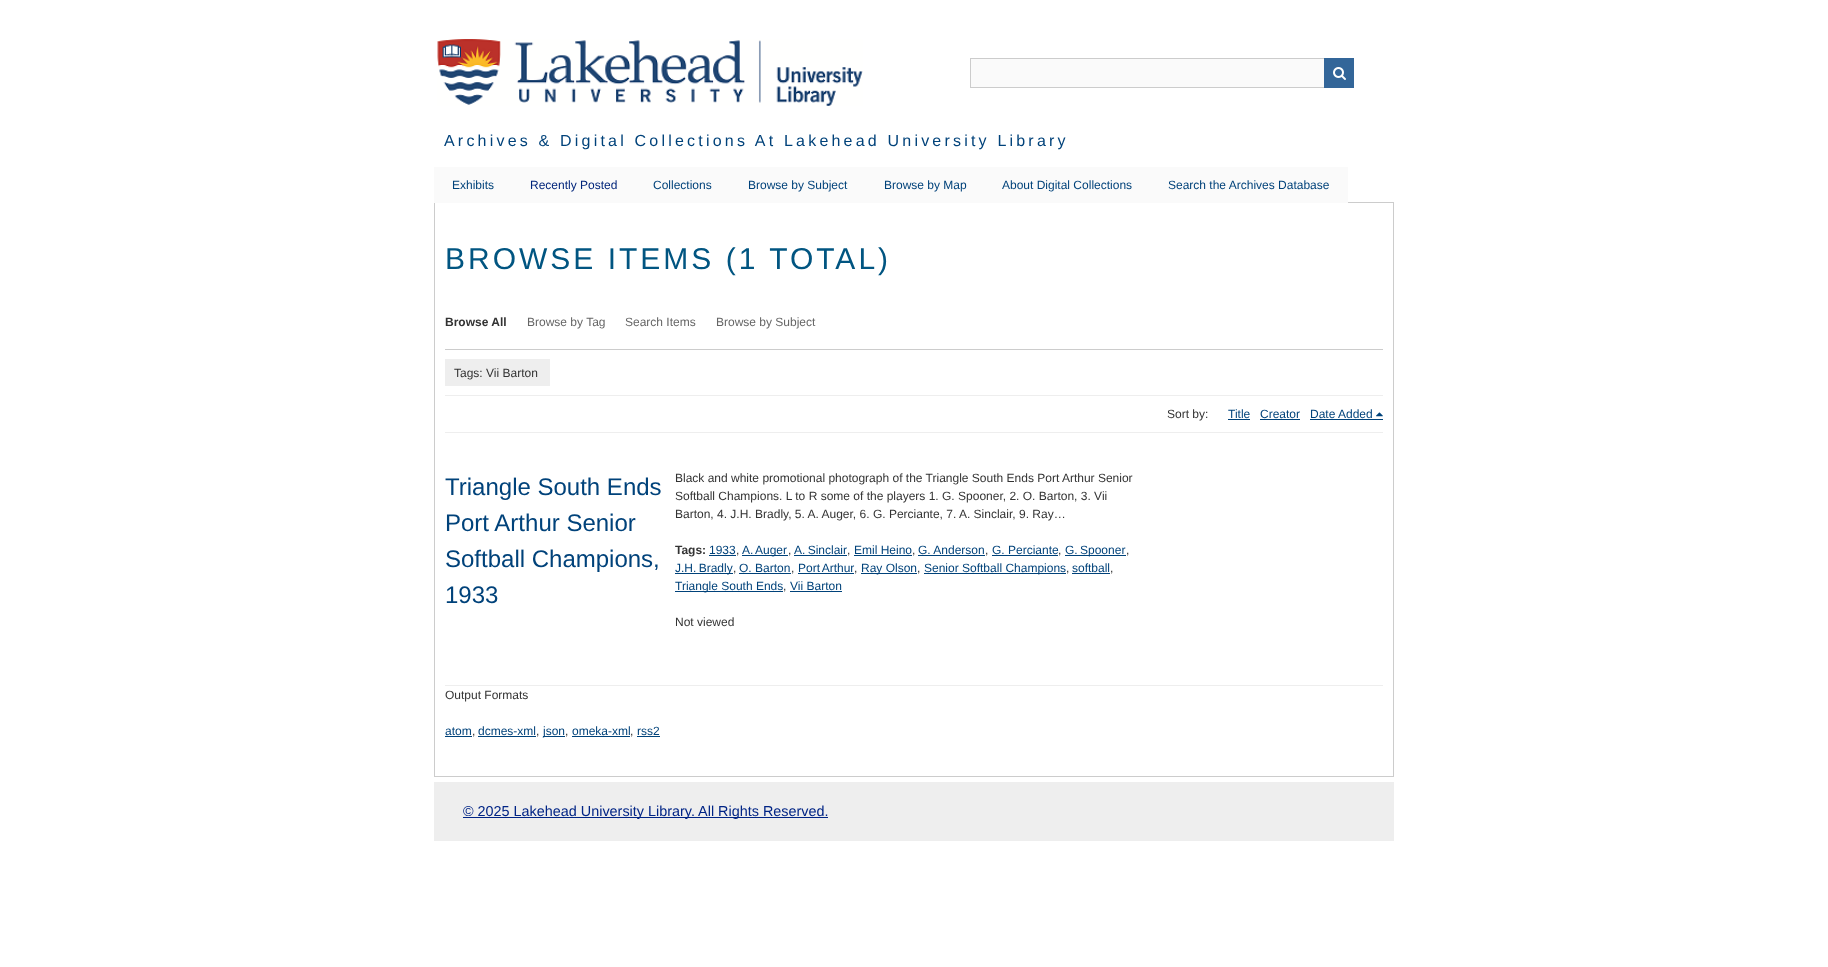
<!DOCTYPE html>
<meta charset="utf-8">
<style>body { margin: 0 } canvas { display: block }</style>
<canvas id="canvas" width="1828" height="967"></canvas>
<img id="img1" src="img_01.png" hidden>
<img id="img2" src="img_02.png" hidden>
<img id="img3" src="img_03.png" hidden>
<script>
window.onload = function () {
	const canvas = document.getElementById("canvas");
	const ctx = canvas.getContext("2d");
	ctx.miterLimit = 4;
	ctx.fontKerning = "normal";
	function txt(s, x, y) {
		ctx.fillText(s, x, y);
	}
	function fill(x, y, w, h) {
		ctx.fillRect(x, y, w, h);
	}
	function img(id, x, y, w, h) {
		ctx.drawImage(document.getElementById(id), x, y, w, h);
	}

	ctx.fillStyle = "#FFFFFF";
	fill(0, 0, 1828, 967);
	img("img1", 437, 39, 426, 67);
	ctx.fillStyle = "#FAFAFA";
	fill(971, 59, 353, 28);
	ctx.strokeStyle = "#CCCCCC";
	ctx.strokeRect(970.5, 58.5, 383, 29);
	ctx.fillStyle = "#336699";
	fill(1324, 58, 30, 30);
	img("img2", 1333, 67, 13, 13);
	ctx.strokeRect(434.5, 202.5, 959, 574);
	ctx.fillStyle = "#FAFAFA";
	fill(434, 167, 78, 36);
	fill(512, 167, 836, 36);
	ctx.fillStyle = "#CCCCCC";
	fill(445, 349, 938, 1);
	ctx.fillStyle = "#EEEEEE";
	fill(445, 395, 938, 1);
	fill(445, 359, 105, 27);
	ctx.fillStyle = "#00427A";
	fill(1228, 419, 22, 1);
	fill(1260, 419, 40, 1);
	fill(1310, 419, 73, 1);
	img("img3", 1376, 412, 7, 5);
	ctx.fillStyle = "#EEEEEE";
	fill(445, 432, 938, 1);
	fill(445, 685, 938, 1);
	ctx.fillStyle = "#00427A";
	fill(709, 555, 27, 1);
	fill(742, 555, 46, 1);
	fill(794, 555, 53, 1);
	fill(854, 555, 58, 1);
	fill(918, 555, 67, 1);
	fill(992, 555, 66, 1);
	fill(1065, 555, 61, 1);
	fill(675, 573, 58, 1);
	fill(739, 573, 52, 1);
	fill(798, 573, 56, 1);
	fill(861, 573, 56, 1);
	fill(924, 573, 142, 1);
	fill(1072, 573, 38, 1);
	fill(675, 591, 108, 1);
	fill(790, 591, 52, 1);
	fill(445, 736, 27, 1);
	fill(478, 736, 58, 1);
	fill(543, 736, 22, 1);
	fill(572, 736, 58, 1);
	fill(637, 736, 23, 1);
	ctx.fillStyle = "#EEEEEE";
	fill(434, 782, 960, 59);
	ctx.fillStyle = "#002485";
	fill(463, 817, 365, 1);
	ctx.letterSpacing = "3.2px";
	ctx.font = "16px Liberation Sans";
	ctx.fillStyle = "#00427A";
	txt("Archives & Digital Collections At Lakehead University Library", 444, 146);
	ctx.letterSpacing = "0px";
	ctx.font = "12px Liberation Sans";
	txt("Exhibits", 452, 189);
	ctx.fillStyle = "#00247A";
	txt("Recently Posted", 530, 189);
	ctx.fillStyle = "#00427A";
	txt("Collections", 653, 189);
	txt("Browse by Subject", 748, 189);
	txt("Browse by Map", 884, 189);
	txt("About Digital Collections", 1002, 189);
	txt("Search the Archives Database", 1168, 189);
	ctx.letterSpacing = "3px";
	ctx.font = "30px Liberation Sans";
	ctx.fillStyle = "#015581";
	txt("BROWSE ITEMS (1 TOTAL)", 445, 269);
	ctx.letterSpacing = "0px";
	ctx.font = "bold 12px Liberation Sans";
	ctx.fillStyle = "#333333";
	txt("Browse All", 445, 326);
	ctx.font = "12px Liberation Sans";
	ctx.fillStyle = "#666666";
	txt("Browse by Tag", 527, 326);
	txt("Search Items", 625, 326);
	txt("Browse by Subject", 716, 326);
	ctx.fillStyle = "#333333";
	txt("Tags: Vii Barton", 454, 377);
	txt("Sort by:", 1167, 418);
	ctx.fillStyle = "#00427A";
	txt("Title", 1228, 418);
	txt("Creator", 1260, 418);
	txt("Date Added", 1310, 418);
	ctx.font = "24px Liberation Sans";
	txt("Triangle South Ends", 445, 495);
	txt("Port Arthur Senior", 445, 531);
	txt("Softball Champions,", 445, 567);
	txt("1933", 445, 603);
	ctx.font = "12px Liberation Sans";
	ctx.fillStyle = "#333333";
	txt("Black and white promotional photograph of the Triangle South Ends Port Arthur Senior", 675, 482);
	txt("Softball Champions. L to R some of the players 1. G. Spooner, 2. O. Barton, 3. Vii", 675, 500);
	txt("Barton, 4. J.H. Bradly, 5. A. Auger, 6. G. Perciante, 7. A. Sinclair, 9. Ray…", 675, 518);
	ctx.font = "bold 12px Liberation Sans";
	txt("Tags:", 675, 554);
	ctx.font = "12px Liberation Sans";
	ctx.fillStyle = "#00427A";
	txt("1933", 709, 554);
	ctx.fillStyle = "#333333";
	txt(",", 736, 554);
	ctx.wordSpacing = "-1px";
	ctx.fillStyle = "#00427A";
	txt("A. Auger", 742, 554);
	ctx.wordSpacing = "0px";
	ctx.fillStyle = "#333333";
	txt(",", 788, 554);
	ctx.wordSpacing = "-1px";
	ctx.fillStyle = "#00427A";
	txt("A. Sinclair", 794, 554);
	ctx.wordSpacing = "0px";
	ctx.fillStyle = "#333333";
	txt(",", 847, 554);
	ctx.fillStyle = "#00427A";
	txt("Emil Heino", 854, 554);
	ctx.fillStyle = "#333333";
	txt(",", 912, 554);
	ctx.fillStyle = "#00427A";
	txt("G. Anderson", 918, 554);
	ctx.fillStyle = "#333333";
	txt(",", 985, 554);
	ctx.fillStyle = "#00427A";
	txt("G. Perciante", 992, 554);
	ctx.fillStyle = "#333333";
	txt(",", 1058, 554);
	ctx.wordSpacing = "-1px";
	ctx.fillStyle = "#00427A";
	txt("G. Spooner", 1065, 554);
	ctx.wordSpacing = "0px";
	ctx.fillStyle = "#333333";
	txt(",", 1126, 554);
	ctx.wordSpacing = "-1px";
	ctx.fillStyle = "#00427A";
	txt("J.H. Bradly", 675, 572);
	ctx.wordSpacing = "0px";
	ctx.fillStyle = "#333333";
	txt(",", 733, 572);
	ctx.fillStyle = "#00427A";
	txt("O. Barton", 739, 572);
	ctx.fillStyle = "#333333";
	txt(",", 791, 572);
	ctx.wordSpacing = "-1px";
	ctx.fillStyle = "#00427A";
	txt("Port Arthur", 798, 572);
	ctx.wordSpacing = "0px";
	ctx.fillStyle = "#333333";
	txt(",", 854, 572);
	ctx.fillStyle = "#00427A";
	txt("Ray Olson", 861, 572);
	ctx.fillStyle = "#333333";
	txt(",", 917, 572);
	ctx.fillStyle = "#00427A";
	txt("Senior Softball Champions", 924, 572);
	ctx.fillStyle = "#333333";
	txt(",", 1066, 572);
	ctx.fillStyle = "#00427A";
	txt("softball", 1072, 572);
	ctx.fillStyle = "#333333";
	txt(",", 1110, 572);
	ctx.fillStyle = "#00427A";
	txt("Triangle South Ends", 675, 590);
	ctx.fillStyle = "#333333";
	txt(",", 783, 590);
	ctx.fillStyle = "#00427A";
	txt("Vii Barton", 790, 590);
	ctx.fillStyle = "#333333";
	txt("Not viewed", 675, 626);
	txt("Output Formats", 445, 699);
	ctx.fillStyle = "#00427A";
	txt("atom", 445, 735);
	ctx.fillStyle = "#333333";
	txt(",", 472, 735);
	ctx.fillStyle = "#00427A";
	txt("dcmes-xml", 478, 735);
	ctx.fillStyle = "#333333";
	txt(",", 536, 735);
	ctx.fillStyle = "#00427A";
	txt("json", 543, 735);
	ctx.fillStyle = "#333333";
	txt(",", 565, 735);
	ctx.fillStyle = "#00427A";
	txt("omeka-xml", 572, 735);
	ctx.fillStyle = "#333333";
	txt(",", 630, 735);
	ctx.fillStyle = "#00427A";
	txt("rss2", 637, 735);
	ctx.font = "14.4px Liberation Sans";
	ctx.fillStyle = "#002485";
	txt("© 2025 Lakehead University Library. All Rights Reserved.", 463, 816);
};
</script>
